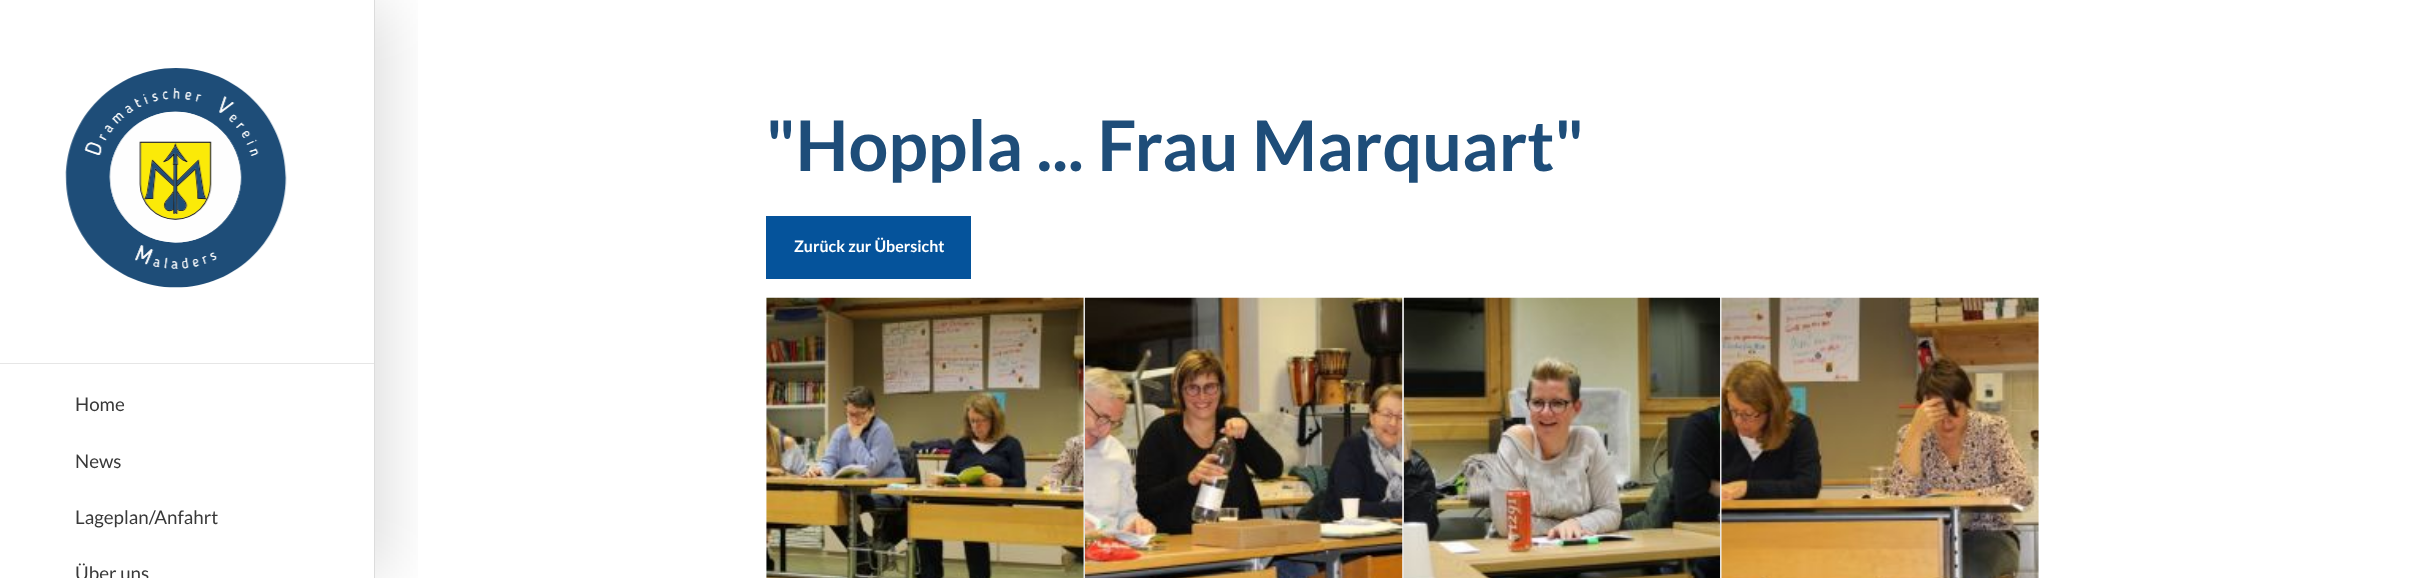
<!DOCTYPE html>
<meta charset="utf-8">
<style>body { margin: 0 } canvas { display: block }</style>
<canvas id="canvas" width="2432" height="578"></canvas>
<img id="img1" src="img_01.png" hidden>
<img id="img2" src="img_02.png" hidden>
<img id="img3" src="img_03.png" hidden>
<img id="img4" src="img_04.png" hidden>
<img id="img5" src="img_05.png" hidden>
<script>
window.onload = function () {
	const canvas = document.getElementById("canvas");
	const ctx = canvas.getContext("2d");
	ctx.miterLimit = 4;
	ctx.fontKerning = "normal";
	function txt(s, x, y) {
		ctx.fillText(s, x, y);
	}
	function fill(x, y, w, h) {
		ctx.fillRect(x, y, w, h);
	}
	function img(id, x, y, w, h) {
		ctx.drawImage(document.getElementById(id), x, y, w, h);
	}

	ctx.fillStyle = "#FFFFFF";
	fill(0, 0, 2432, 578);
	ctx.fillStyle = "#05539B";
	fill(766, 216, 205, 63);
	ctx.fillStyle = "#E5E5E5";
	fill(1084, 298, 1, 280);
	img("img1", 766, 297, 318, 281);
	fill(1403, 298, 1, 280);
	img("img2", 1085, 297, 318, 281);
	fill(1720, 298, 1, 280);
	img("img3", 1403, 297, 317, 281);
	img("img4", 1721, 297, 318, 281);
	ctx.save();
	ctx.beginPath();
	ctx.rect(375, 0, 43, 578);
	ctx.clip();
	ctx.fillStyle = "rgba(0, 0, 0, 0.14)";
	ctx.filter = "blur(31px)";
	ctx.beginPath();
	ctx.rect(15, 3, 370, 573);
	ctx.fill();
	ctx.filter = "none";
	ctx.restore();
	ctx.fillStyle = "#DCDCDC";
	fill(374, 0, 1, 578);
	img("img5", 65, 68, 222, 220);
	ctx.fillStyle = "#E6E6E6";
	fill(0, 363, 374, 1);
	ctx.font = "bold 70px Lato";
	ctx.fillStyle = "#1E4D79";
	txt("\"Hoppla ... Frau Marquart\"", 766, 171);
	ctx.font = "bold 16px Lato";
	ctx.fillStyle = "#FFFFFF";
	txt("Zurück zur Übersicht", 794, 252);
	ctx.font = "18.75px Lato";
	ctx.fillStyle = "#393939";
	txt("Home", 75, 411);
	txt("News", 75, 468);
	txt("Lageplan/Anfahrt", 75, 524);
	txt("Über uns", 75, 580);
};
</script>
